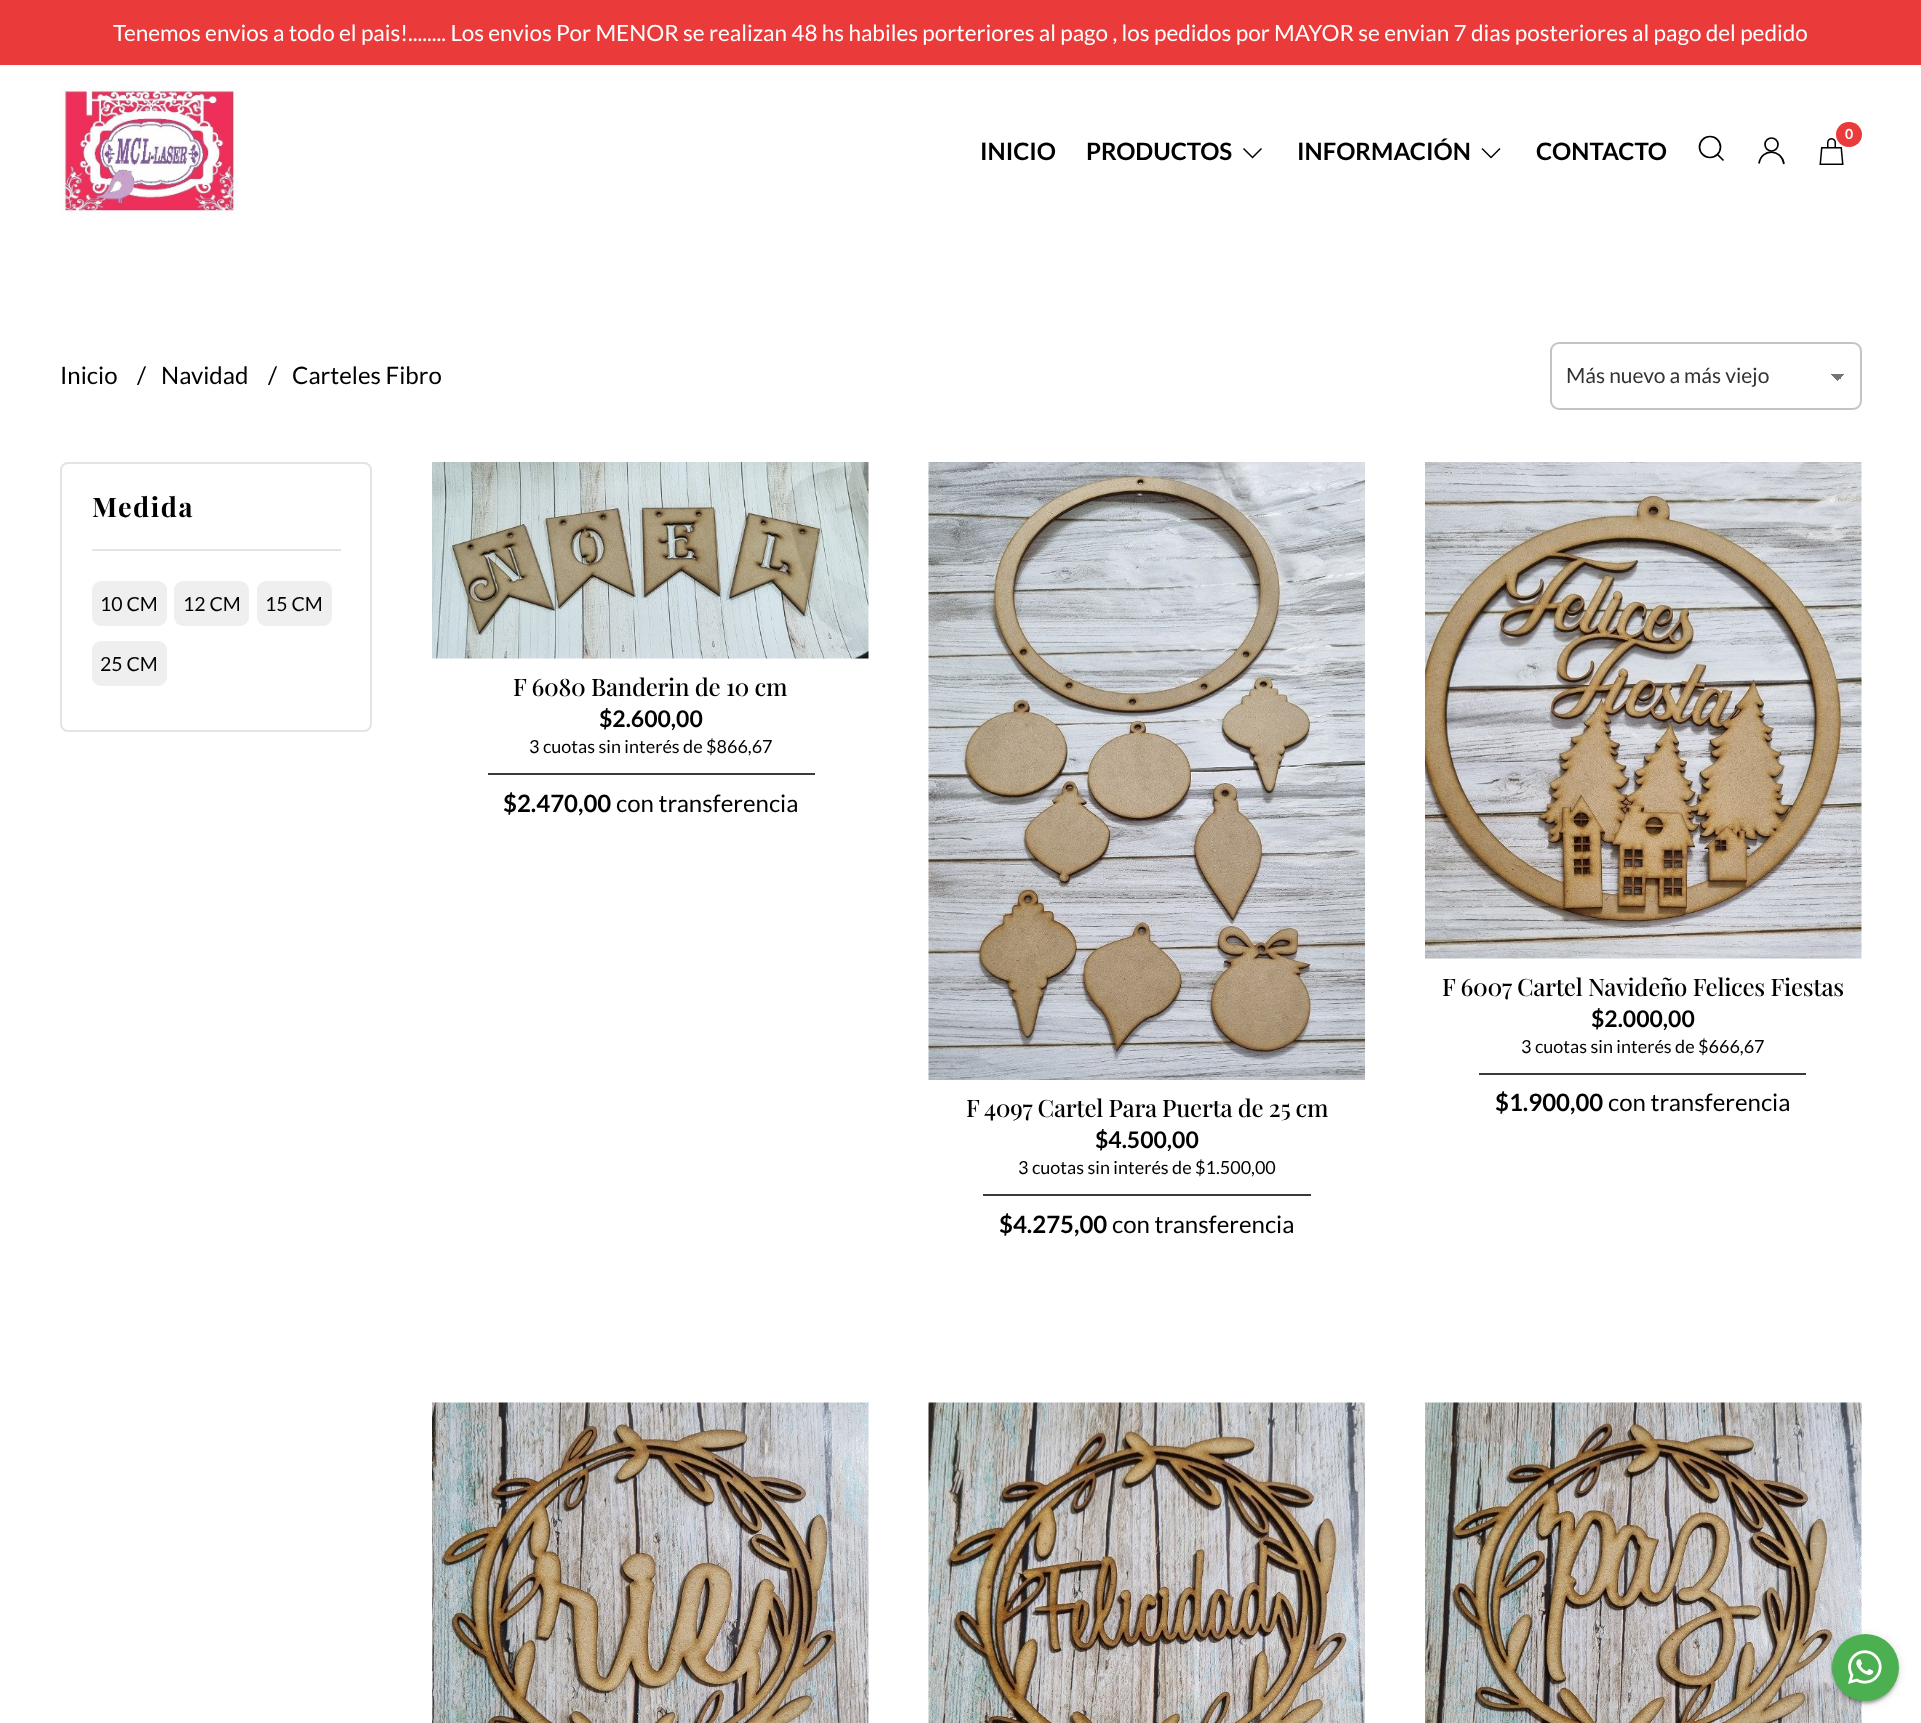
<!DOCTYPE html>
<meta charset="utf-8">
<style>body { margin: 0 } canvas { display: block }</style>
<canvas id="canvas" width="1921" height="1723"></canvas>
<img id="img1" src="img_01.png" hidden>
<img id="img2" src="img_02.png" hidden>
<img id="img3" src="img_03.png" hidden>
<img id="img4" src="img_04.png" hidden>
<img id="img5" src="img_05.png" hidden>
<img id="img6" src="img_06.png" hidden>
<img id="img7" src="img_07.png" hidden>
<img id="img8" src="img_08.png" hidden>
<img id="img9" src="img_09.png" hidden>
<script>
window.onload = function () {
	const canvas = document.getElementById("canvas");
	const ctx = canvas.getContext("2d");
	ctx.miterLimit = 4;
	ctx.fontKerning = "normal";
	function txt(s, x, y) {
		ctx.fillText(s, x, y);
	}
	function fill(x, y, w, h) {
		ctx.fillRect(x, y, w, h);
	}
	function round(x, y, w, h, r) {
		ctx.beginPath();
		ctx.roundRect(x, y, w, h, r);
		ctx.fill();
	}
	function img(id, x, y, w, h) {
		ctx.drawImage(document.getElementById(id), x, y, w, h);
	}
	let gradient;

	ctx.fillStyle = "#FFFFFF";
	fill(0, 0, 1921, 1723);
	ctx.fillStyle = "#EA3A3A";
	fill(0, 0, 1921, 65);
	img("img1", 60, 87, 178, 128);
	ctx.beginPath();
	ctx.moveTo(1261.5, 148.5);
	ctx.lineTo(1252.5, 157.5);
	ctx.lineTo(1243.5, 148.5);
	ctx.strokeStyle = "#000000";
	ctx.lineWidth = 1.5;
	ctx.stroke();
	ctx.beginPath();
	ctx.moveTo(1500, 148.5);
	ctx.lineTo(1491, 157.5);
	ctx.lineTo(1482, 148.5);
	ctx.stroke();
	ctx.beginPath();
	ctx.arc(1710, 147, 10.5, 0, Math.PI * 2);
	ctx.lineWidth = 1.7;
	ctx.stroke();
	ctx.beginPath();
	ctx.moveTo(1717.5, 154.5);
	ctx.lineTo(1723.5, 160.5);
	ctx.closePath();
	ctx.stroke();
	ctx.beginPath();
	ctx.arc(1771.5, 144.5, 6.5, 0, Math.PI * 2);
	ctx.stroke();
	ctx.beginPath();
	ctx.moveTo(1759, 163.5);
	ctx.bezierCurveTo(1761.5, 148, 1781.5, 148.5, 1784, 164);
	ctx.stroke();
	img("img2", 1819, 138, 25, 27);
	round(1836, 122, 26, 25, 12.5);
	gradient = ctx.createLinearGradient(1838, 374, 1845, 381);
	gradient.addColorStop(0.5, "#757575");
	gradient.addColorStop(0.5, "#FFFFFF");
	ctx.fillStyle = gradient;
	fill(1838, 374, 7, 7);
	gradient = ctx.createLinearGradient(1830, 381, 1838, 374);
	gradient.addColorStop(0.5, "#FFFFFF");
	gradient.addColorStop(0.5, "#757575");
	ctx.fillStyle = gradient;
	fill(1830, 374, 8, 7);
	ctx.beginPath();
	ctx.roundRect(1551, 343, 310, 66, 8);
	ctx.strokeStyle = "#C4C4C4";
	ctx.lineWidth = 2;
	ctx.stroke();
	ctx.beginPath();
	ctx.roundRect(61, 463, 310, 268, 7);
	ctx.strokeStyle = "#E4E4E4";
	ctx.stroke();
	ctx.fillStyle = "#E4E4E4";
	fill(92, 549, 249, 2);
	ctx.fillStyle = "#EFEFEF";
	round(92, 581, 75, 45, 9);
	round(174, 581, 75, 45, 9);
	round(257, 581, 75, 45, 9);
	round(92, 641, 75, 45, 9);
	img("img3", 432, 462, 437, 197);
	ctx.fillStyle = "#3A3A3A";
	fill(488, 773, 327, 2);
	img("img4", 1425, 462, 437, 497);
	fill(1479, 1073, 327, 2);
	img("img5", 928, 462, 437, 618);
	fill(983, 1194, 328, 2);
	img("img6", 432, 1402, 437, 321);
	img("img7", 928, 1402, 437, 321);
	img("img8", 1425, 1402, 437, 321);
	ctx.fillStyle = "rgba(0, 0, 0, 0.2)";
	ctx.filter = "blur(1px)";
	ctx.beginPath();
	ctx.roundRect(1835, 1641, 61, 62, 30.5);
	ctx.fill();
	ctx.filter = "none";
	ctx.fillStyle = "rgba(0, 0, 0, 0.12)";
	ctx.filter = "blur(4px)";
	ctx.beginPath();
	ctx.roundRect(1832, 1635, 67, 68, 33.5);
	ctx.fill();
	ctx.filter = "none";
	ctx.fillStyle = "rgba(0, 0, 0, 0.14)";
	ctx.filter = "blur(1.5px)";
	ctx.beginPath();
	ctx.roundRect(1832, 1637, 67, 67, 33.5);
	ctx.fill();
	ctx.filter = "none";
	ctx.fillStyle = "#4CAF50";
	ctx.beginPath();
	ctx.arc(1865.5, 1667.5, 33.5, 0, Math.PI * 2);
	ctx.fill();
	img("img9", 1848, 1650, 34, 34);
	ctx.font = "22.5px Lato";
	ctx.fillStyle = "#FFFFFF";
	txt("Tenemos envios a todo el pais!........ Los envios Por MENOR se realizan 48 hs habiles porteriores al pago , los pedidos por MAYOR se envian 7 dias posteriores al pago del pedido", 113, 41);
	ctx.font = "bold 24px Lato";
	ctx.fillStyle = "#000000";
	txt("INICIO", 980, 160);
	txt("PRODUCTOS", 1086, 160);
	txt("INFORMACIÓN", 1297, 160);
	txt("CONTACTO", 1536, 160);
	ctx.font = "bold 14px Lato";
	ctx.fillStyle = "#FFFFFF";
	txt("0", 1845, 139);
	ctx.font = "24px Lato";
	ctx.fillStyle = "#000000";
	txt("Inicio", 60, 384);
	txt("/", 137, 384);
	txt("Navidad", 161, 384);
	txt("/", 268, 384);
	txt("Carteles Fibro", 292, 384);
	ctx.font = "21px Lato";
	ctx.fillStyle = "#333333";
	txt("Más nuevo a más viejo", 1566, 383);
	ctx.letterSpacing = "1.5px";
	ctx.font = "bold 27px Playfair Display";
	ctx.fillStyle = "#000000";
	txt("Medida", 92, 517);
	ctx.letterSpacing = "0px";
	ctx.font = "19.5px Lato";
	txt("10 CM", 100, 611);
	txt("12 CM", 183, 611);
	txt("15 CM", 265, 611);
	txt("25 CM", 100, 671);
	ctx.letterSpacing = "-0.3px";
	ctx.font = "500 24px Playfair Display";
	txt("F 6080 Banderin de 10 cm", 513, 696);
	ctx.letterSpacing = "0px";
	ctx.font = "bold 23px Lato";
	txt("$2.600,00", 599, 727);
	ctx.font = "18px Lato";
	txt("3 cuotas sin interés de $866,67", 529, 753);
	ctx.font = "bold 24px Lato";
	txt("$2.470,00", 503, 812);
	ctx.font = "24px Lato";
	txt("con transferencia", 616, 812);
	ctx.letterSpacing = "-0.3px";
	ctx.font = "500 24px Playfair Display";
	txt("F 6007 Cartel Navideño Felices Fiestas", 1442, 996);
	ctx.letterSpacing = "0px";
	ctx.font = "bold 23px Lato";
	txt("$2.000,00", 1591, 1027);
	ctx.font = "18px Lato";
	txt("3 cuotas sin interés de $666,67", 1521, 1053);
	ctx.font = "bold 24px Lato";
	txt("$1.900,00", 1495, 1111);
	ctx.font = "24px Lato";
	txt("con transferencia", 1608, 1111);
	ctx.letterSpacing = "-0.3px";
	ctx.font = "500 24px Playfair Display";
	txt("F 4097 Cartel Para Puerta de 25 cm", 966, 1117);
	ctx.letterSpacing = "0px";
	ctx.font = "bold 23px Lato";
	txt("$4.500,00", 1095, 1148);
	ctx.font = "18px Lato";
	txt("3 cuotas sin interés de $1.500,00", 1018, 1174);
	ctx.font = "bold 24px Lato";
	txt("$4.275,00", 999, 1233);
	ctx.font = "24px Lato";
	txt("con transferencia", 1112, 1233);
};
</script>
